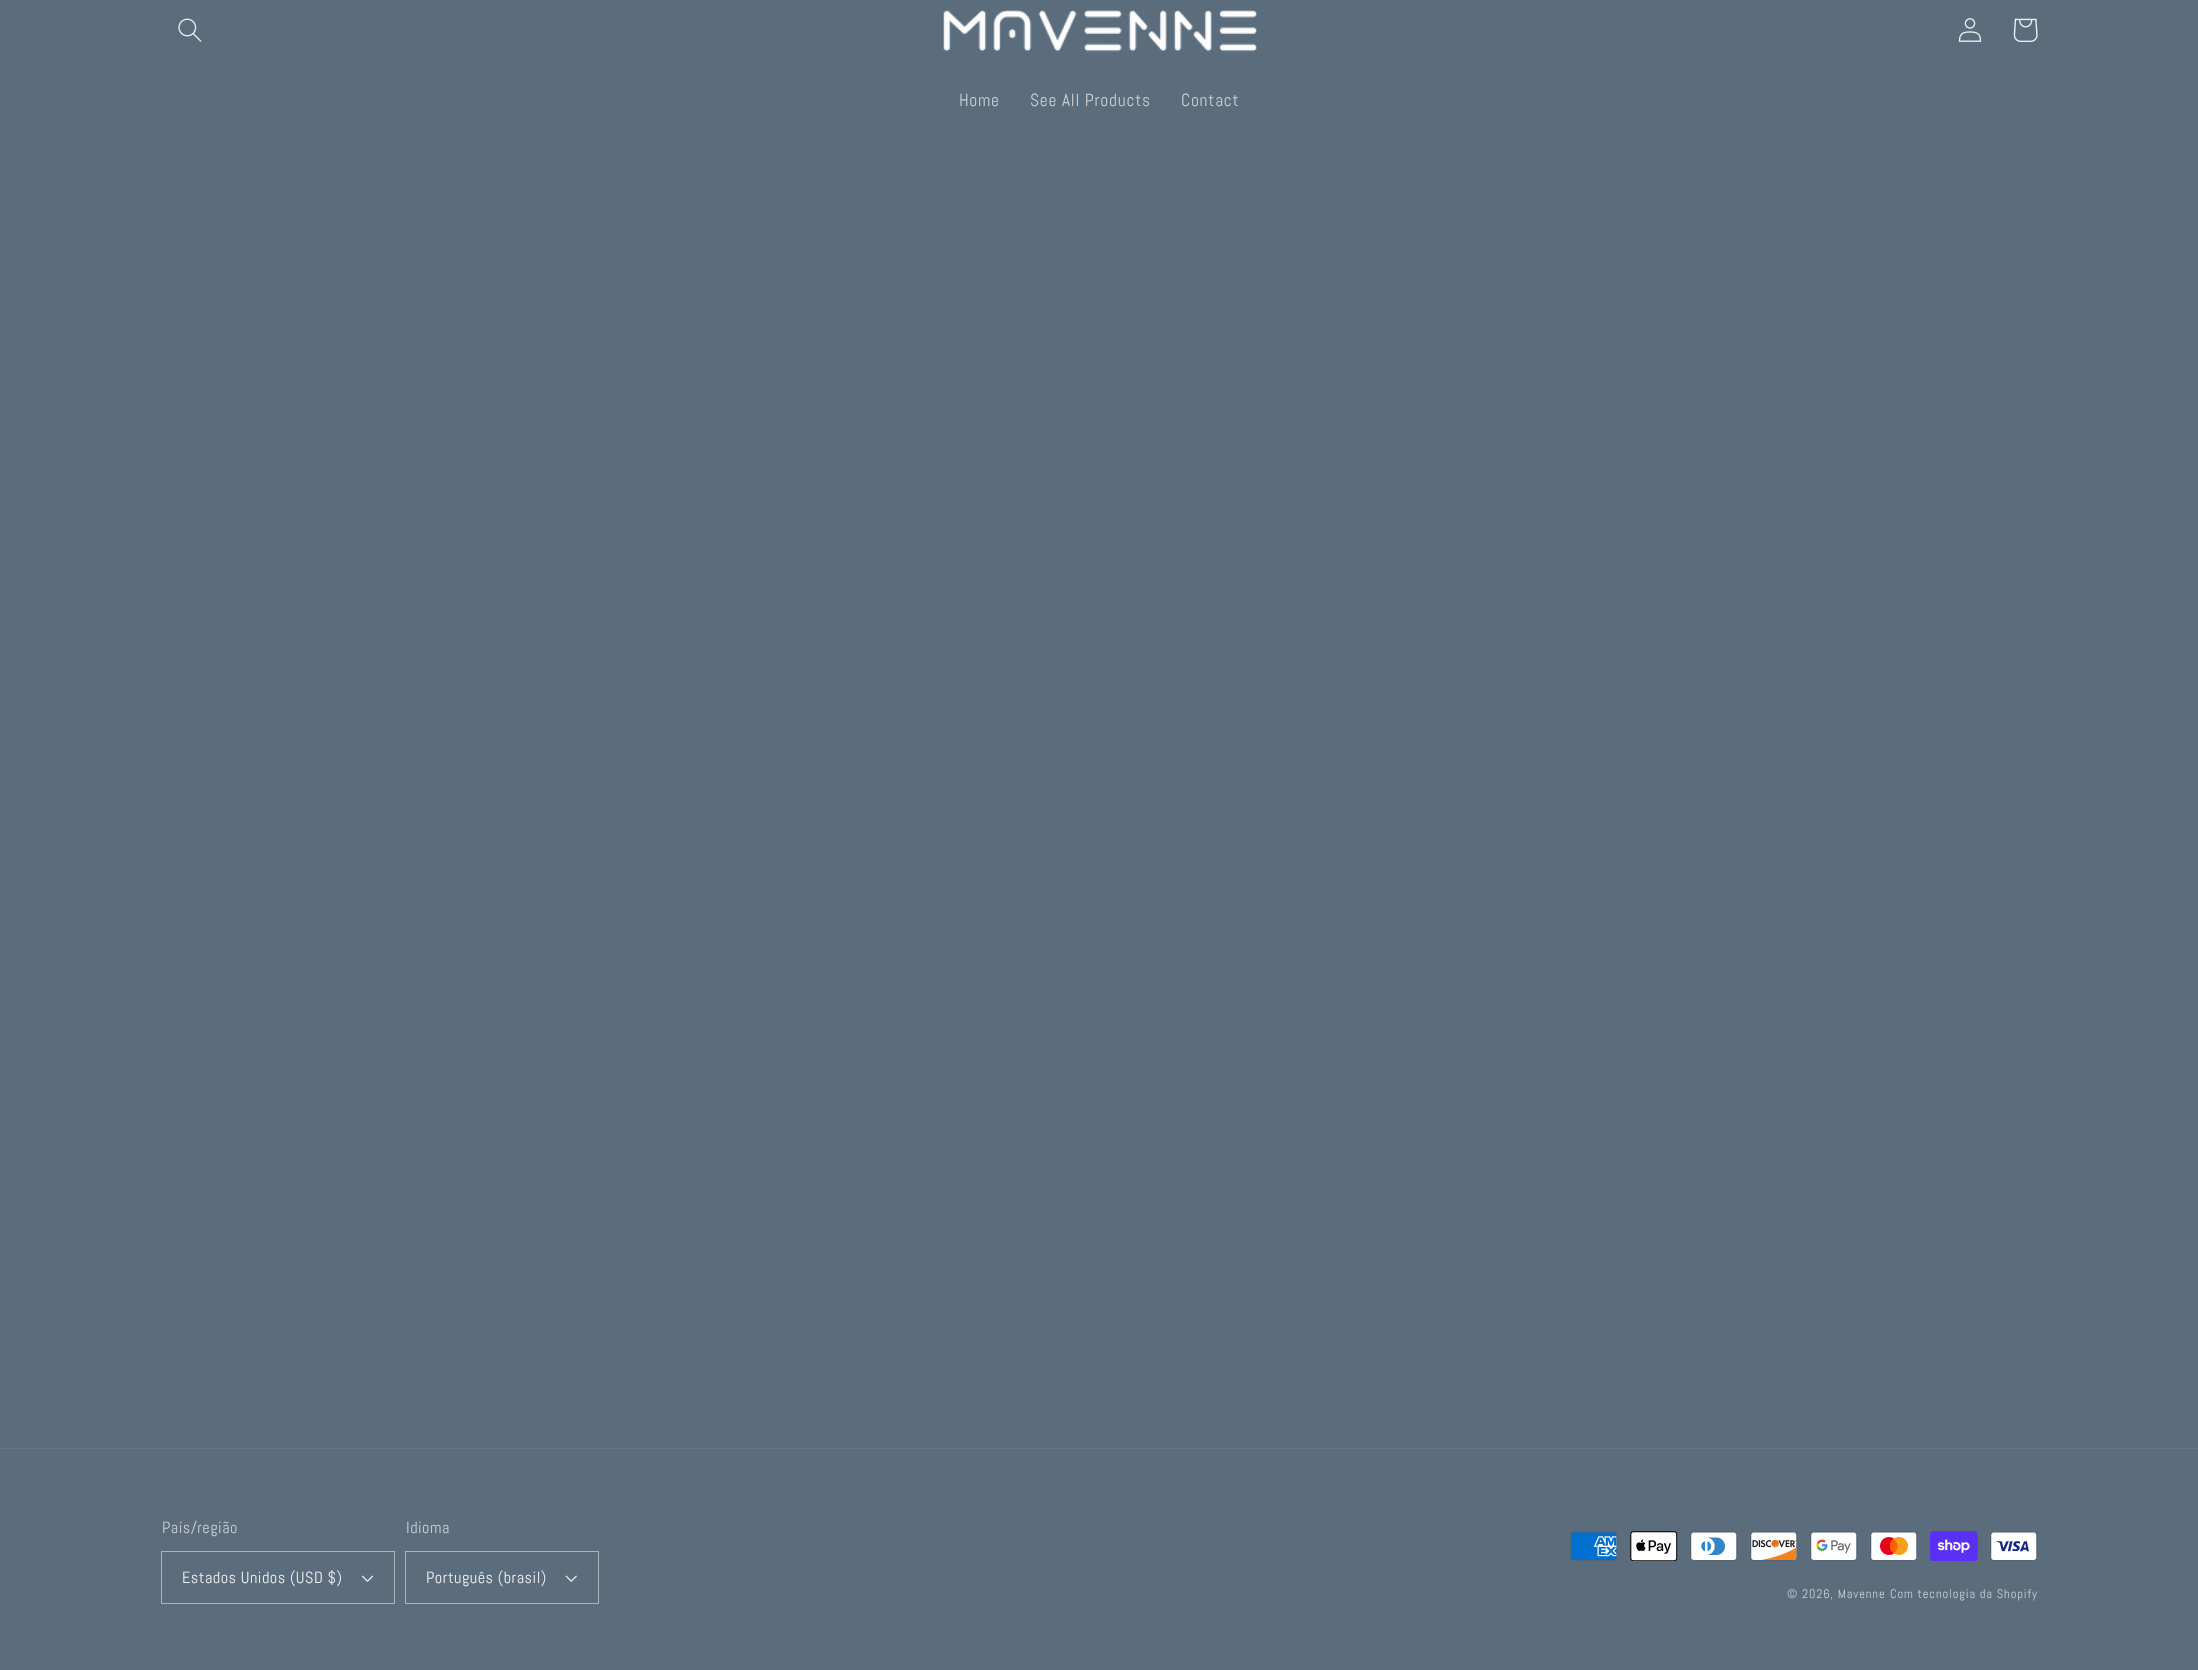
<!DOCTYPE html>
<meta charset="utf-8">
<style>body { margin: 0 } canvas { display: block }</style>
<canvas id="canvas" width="2198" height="1670"></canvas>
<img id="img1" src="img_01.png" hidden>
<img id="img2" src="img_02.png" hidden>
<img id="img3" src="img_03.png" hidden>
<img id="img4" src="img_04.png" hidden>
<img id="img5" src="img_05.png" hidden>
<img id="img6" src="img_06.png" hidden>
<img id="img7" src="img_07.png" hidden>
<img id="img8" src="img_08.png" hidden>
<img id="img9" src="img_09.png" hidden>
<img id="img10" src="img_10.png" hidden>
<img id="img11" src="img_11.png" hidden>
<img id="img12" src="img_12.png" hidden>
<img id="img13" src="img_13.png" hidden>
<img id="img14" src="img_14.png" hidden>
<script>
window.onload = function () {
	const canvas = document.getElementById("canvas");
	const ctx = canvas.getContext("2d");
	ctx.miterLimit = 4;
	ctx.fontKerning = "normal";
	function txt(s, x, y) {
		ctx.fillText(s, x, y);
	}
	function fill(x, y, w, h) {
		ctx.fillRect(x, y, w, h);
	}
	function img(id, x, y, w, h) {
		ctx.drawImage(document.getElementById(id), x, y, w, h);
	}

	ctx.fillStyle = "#5B6D7D";
	fill(0, 0, 2198, 1670);
	img("img1", 178, 18, 24, 24);
	img("img2", 943, 10, 314, 42);
	img("img3", 1958, 18, 24, 24);
	img("img4", 2013, 18, 25, 24);
	ctx.fillStyle = "#677786";
	fill(0, 1448, 2198, 1);
	ctx.strokeStyle = "#ADB5BC";
	ctx.strokeRect(161.5, 1551.5, 233, 52);
	img("img5", 361, 1575, 13, 7);
	ctx.strokeRect(405.5, 1551.5, 193, 52);
	img("img6", 565, 1575, 12, 7);
	img("img7", 1570, 1531, 48, 30);
	img("img8", 1630, 1531, 48, 30);
	img("img9", 1690, 1531, 48, 30);
	img("img10", 1750, 1531, 48, 30);
	img("img11", 1810, 1531, 48, 30);
	img("img12", 1870, 1531, 48, 30);
	img("img13", 1930, 1531, 48, 30);
	img("img14", 1990, 1531, 48, 30);
	ctx.letterSpacing = "0.75px";
	ctx.font = "17.5px Abel";
	ctx.fillStyle = "#CBCFD3";
	txt("Home", 959, 106);
	txt("See All Products", 1030, 106);
	txt("Contact", 1181, 106);
	ctx.letterSpacing = "0.5px";
	ctx.font = "16.25px Abel";
	txt("País/região", 162, 1533);
	ctx.fillStyle = "#F0F0F0";
	txt("Estados Unidos (USD $)", 182, 1583);
	ctx.fillStyle = "#CBCFD3";
	txt("Idioma", 406, 1533);
	ctx.fillStyle = "#F0F0F0";
	txt("Português (brasil)", 426, 1583);
	ctx.letterSpacing = "0.9px";
	ctx.font = "12.5px Abel";
	ctx.fillStyle = "#CBCFD3";
	txt("© 2026, Mavenne", 1787, 1598);
	txt("Com tecnologia da Shopify", 1890, 1598);
};
</script>
